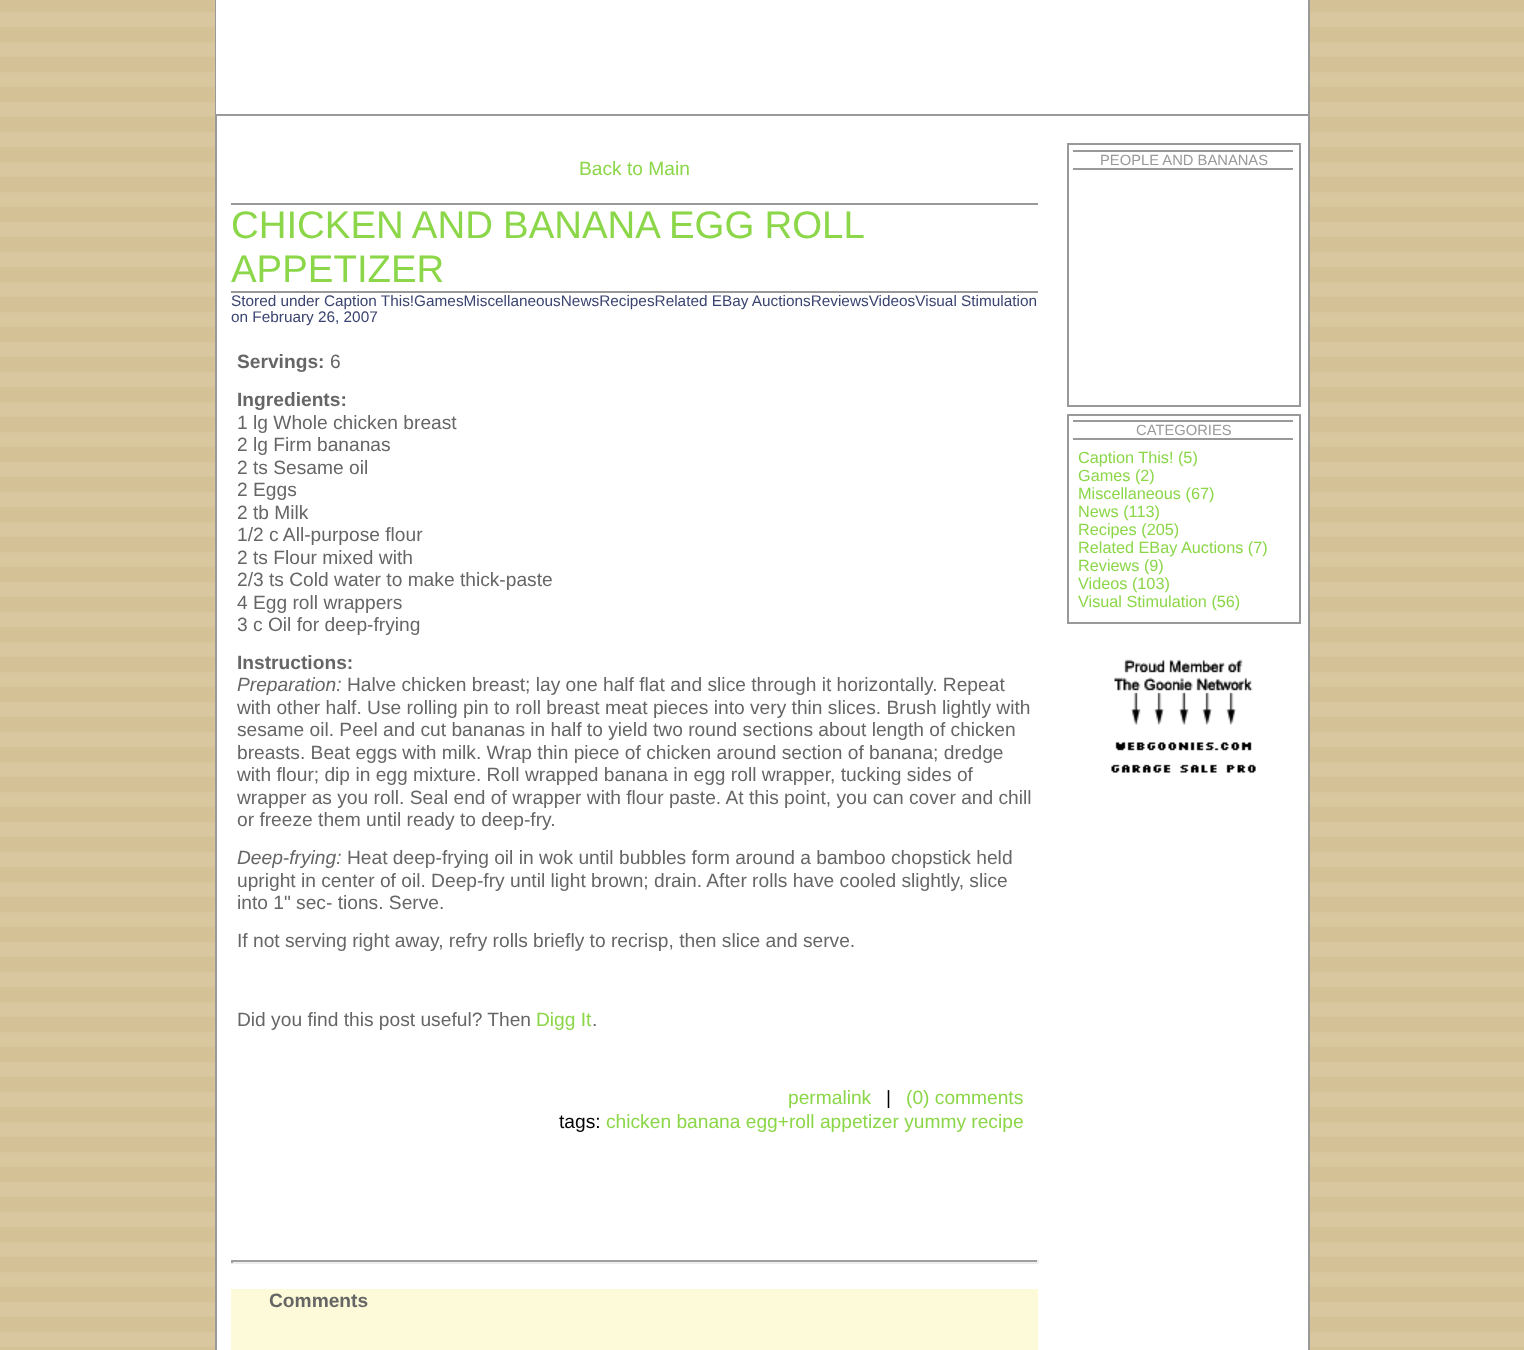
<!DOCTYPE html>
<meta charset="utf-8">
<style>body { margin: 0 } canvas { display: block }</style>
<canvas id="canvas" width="1524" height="1350"></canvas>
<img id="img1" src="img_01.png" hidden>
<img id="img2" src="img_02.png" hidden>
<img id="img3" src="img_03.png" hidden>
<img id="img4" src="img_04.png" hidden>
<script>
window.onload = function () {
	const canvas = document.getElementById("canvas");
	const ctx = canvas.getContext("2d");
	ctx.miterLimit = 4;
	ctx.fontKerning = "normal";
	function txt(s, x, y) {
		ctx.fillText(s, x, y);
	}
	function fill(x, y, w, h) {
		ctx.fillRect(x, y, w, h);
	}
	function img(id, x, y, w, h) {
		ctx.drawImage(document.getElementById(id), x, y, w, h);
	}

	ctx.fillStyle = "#FFFFFF";
	fill(0, 0, 1524, 1350);
	img("img1", 0, 0, 1524, 1350);
	fill(217, 116, 1091, 1234);
	ctx.fillStyle = "#999999";
	fill(1308, 0, 2, 1350);
	fill(215, 0, 2, 1350);
	ctx.fillStyle = "#FFFFFF";
	fill(216, 0, 1092, 114);
	ctx.fillStyle = "#999999";
	fill(216, 114, 1092, 2);
	fill(231, 203, 807, 2);
	fill(231, 291, 807, 2);
	ctx.fillStyle = "#9F9F9F";
	fill(231, 1260, 807, 2);
	ctx.fillStyle = "#EEEEEE";
	fill(1037, 1260, 2, 3);
	fill(231, 1262, 807, 2);
	ctx.fillStyle = "#9F9F9F";
	fill(231, 1260, 2, 3);
	ctx.fillStyle = "#FCFAD8";
	fill(231, 1289, 807, 61);
	ctx.strokeStyle = "#999999";
	ctx.lineWidth = 2;
	ctx.strokeRect(1068, 144, 232, 262);
	ctx.fillStyle = "#999999";
	fill(1073, 150, 220, 2);
	fill(1073, 168, 220, 2);
	ctx.strokeRect(1068, 415, 232, 208);
	fill(1073, 420, 220, 2);
	fill(1073, 438, 220, 2);
	img("img2", 1114, 659, 139, 66);
	img("img3", 1115, 742, 137, 9);
	img("img4", 1111, 764, 145, 9);
	ctx.font = "19.2px Liberation Sans";
	ctx.fillStyle = "#8CD749";
	txt("Back to Main", 579, 175);
	ctx.wordSpacing = "-0.5px";
	ctx.font = "38.4px Liberation Sans";
	txt("CHICKEN AND BANANA EGG ROLL", 231, 238);
	ctx.wordSpacing = "0px";
	txt("APPETIZER", 231, 282);
	ctx.font = "15.35px Liberation Sans";
	ctx.fillStyle = "#3B4471";
	txt("Stored under Caption This!GamesMiscellaneousNewsRecipesRelated EBay AuctionsReviewsVideosVisual Stimulation", 231, 306);
	txt("on February 26, 2007", 231, 322);
	ctx.font = "bold 19.2px Liberation Sans";
	ctx.fillStyle = "#666666";
	txt("Servings:", 237, 368);
	ctx.font = "19.2px Liberation Sans";
	txt("6", 330, 368);
	ctx.font = "bold 19.2px Liberation Sans";
	txt("Ingredients:", 237, 406);
	ctx.font = "19.2px Liberation Sans";
	txt("1 lg Whole chicken breast", 237, 429);
	txt("2 lg Firm bananas", 237, 451);
	txt("2 ts Sesame oil", 237, 474);
	txt("2 Eggs", 237, 496);
	txt("2 tb Milk", 237, 519);
	txt("1/2 c All-purpose flour", 237, 541);
	txt("2 ts Flour mixed with", 237, 564);
	txt("2/3 ts Cold water to make thick-paste", 237, 586);
	txt("4 Egg roll wrappers", 237, 609);
	txt("3 c Oil for deep-frying", 237, 631);
	ctx.font = "bold 19.2px Liberation Sans";
	txt("Instructions:", 237, 669);
	ctx.font = "italic 19.2px Liberation Sans";
	txt("Preparation:", 237, 691);
	ctx.font = "19.2px Liberation Sans";
	txt("Halve chicken breast; lay one half flat and slice through it horizontally. Repeat", 347, 691);
	txt("with other half. Use rolling pin to roll breast meat pieces into very thin slices. Brush lightly with", 237, 714);
	txt("sesame oil. Peel and cut bananas in half to yield two round sections about length of chicken", 237, 736);
	txt("breasts. Beat eggs with milk. Wrap thin piece of chicken around section of banana; dredge", 237, 759);
	txt("with flour; dip in egg mixture. Roll wrapped banana in egg roll wrapper, tucking sides of", 237, 781);
	txt("wrapper as you roll. Seal end of wrapper with flour paste. At this point, you can cover and chill", 237, 804);
	txt("or freeze them until ready to deep-fry.", 237, 826);
	ctx.font = "italic 19.2px Liberation Sans";
	txt("Deep-frying:", 237, 864);
	ctx.font = "19.2px Liberation Sans";
	txt("Heat deep-frying oil in wok until bubbles form around a bamboo chopstick held", 347, 864);
	txt("upright in center of oil. Deep-fry until light brown; drain. After rolls have cooled slightly, slice", 237, 887);
	txt("into 1\" sec- tions. Serve.", 237, 909);
	txt("If not serving right away, refry rolls briefly to recrisp, then slice and serve.", 237, 947);
	txt("Did you find this post useful? Then", 237, 1026);
	ctx.fillStyle = "#8CD749";
	txt("Digg It", 536, 1026);
	ctx.fillStyle = "#666666";
	txt(".", 592, 1026);
	ctx.fillStyle = "#8CD749";
	txt("permalink", 788, 1104);
	ctx.fillStyle = "#000000";
	txt("|", 886, 1104);
	ctx.fillStyle = "#8CD749";
	txt("(0) comments", 906, 1104);
	ctx.fillStyle = "#000000";
	txt("tags:", 559, 1128);
	ctx.fillStyle = "#8CD749";
	txt("chicken banana egg+roll appetizer yummy recipe", 606, 1128);
	ctx.font = "bold 19.2px Liberation Sans";
	ctx.fillStyle = "#666666";
	txt("Comments", 269, 1307);
	ctx.font = "14.75px Liberation Sans";
	ctx.fillStyle = "#999999";
	txt("PEOPLE AND BANANAS", 1100, 165);
	txt("CATEGORIES", 1136, 435);
	ctx.font = "16.25px Liberation Sans";
	ctx.fillStyle = "#8CD749";
	txt("Caption This! (5)", 1078, 463);
	txt("Games (2)", 1078, 481);
	txt("Miscellaneous (67)", 1078, 499);
	txt("News (113)", 1078, 517);
	txt("Recipes (205)", 1078, 535);
	txt("Related EBay Auctions (7)", 1078, 553);
	txt("Reviews (9)", 1078, 571);
	txt("Videos (103)", 1078, 589);
	txt("Visual Stimulation (56)", 1078, 607);
};
</script>
